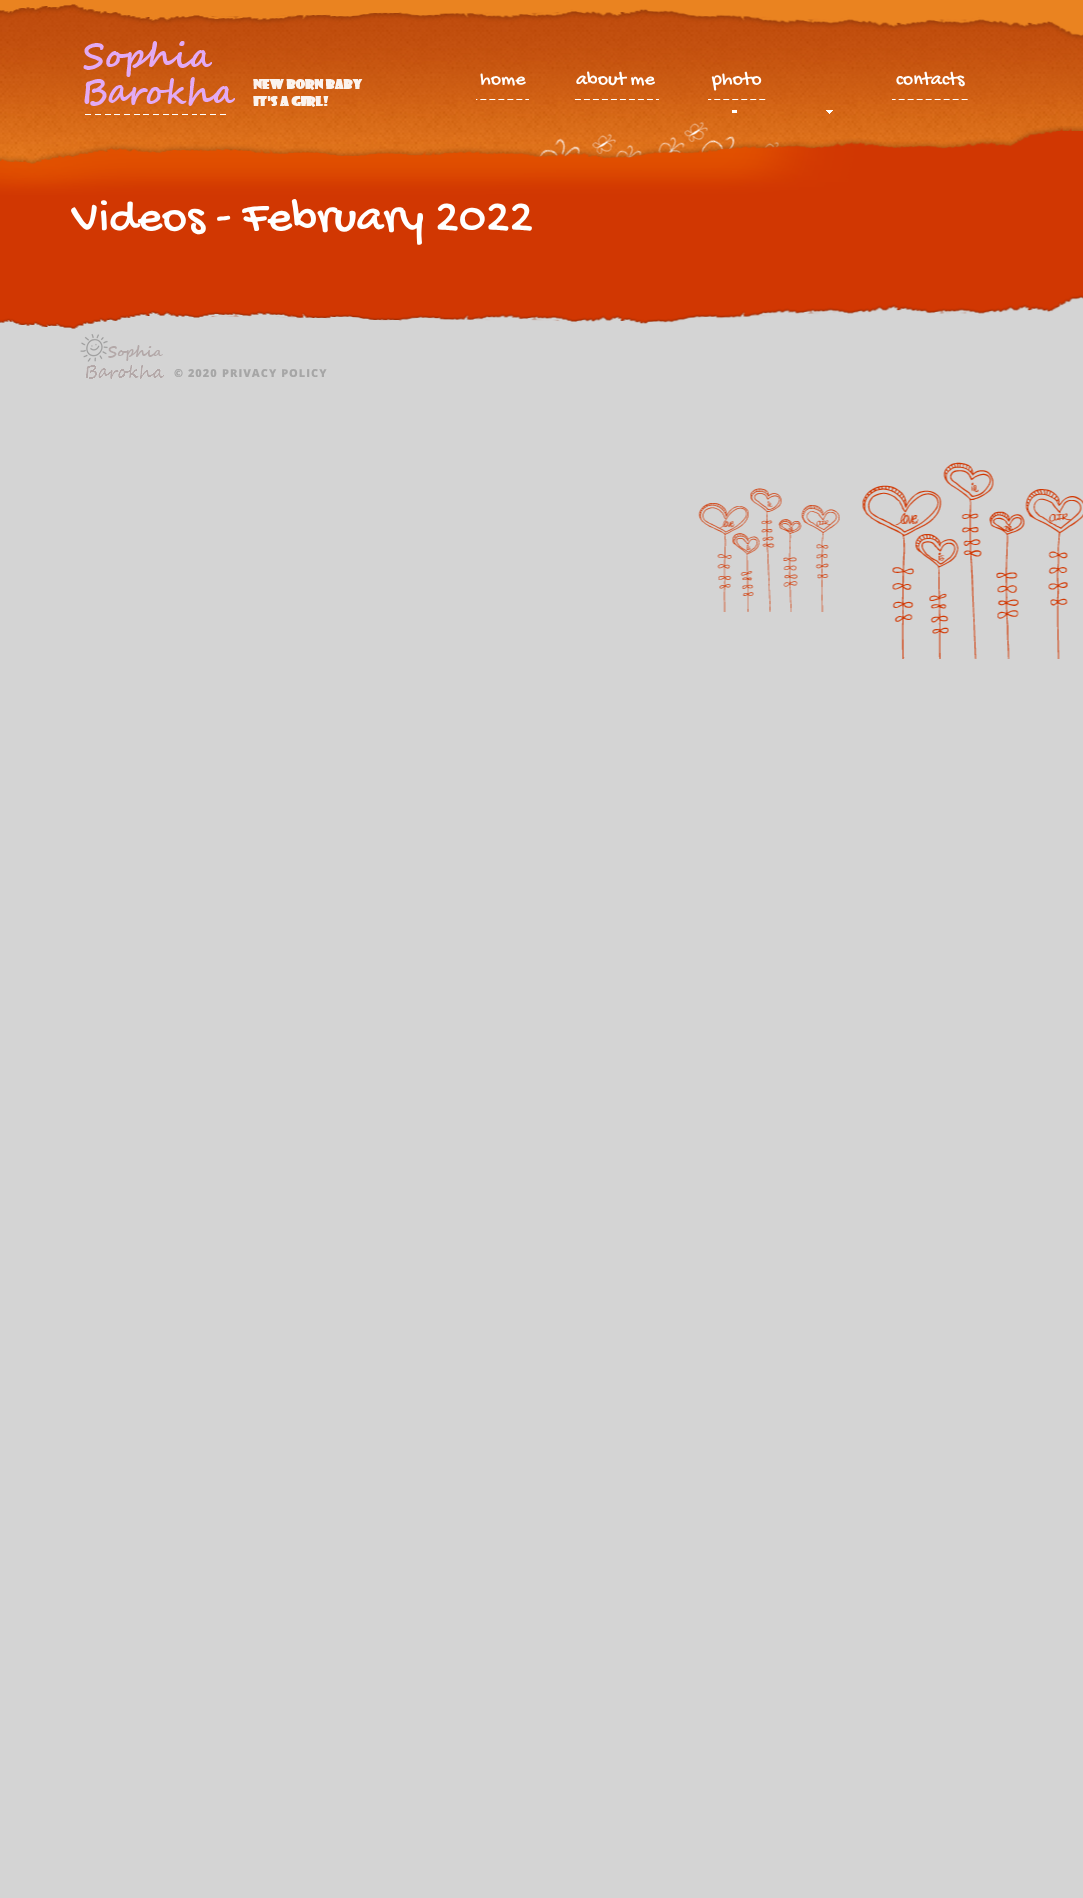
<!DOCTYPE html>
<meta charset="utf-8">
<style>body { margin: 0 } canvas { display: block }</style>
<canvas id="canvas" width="1083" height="1898"></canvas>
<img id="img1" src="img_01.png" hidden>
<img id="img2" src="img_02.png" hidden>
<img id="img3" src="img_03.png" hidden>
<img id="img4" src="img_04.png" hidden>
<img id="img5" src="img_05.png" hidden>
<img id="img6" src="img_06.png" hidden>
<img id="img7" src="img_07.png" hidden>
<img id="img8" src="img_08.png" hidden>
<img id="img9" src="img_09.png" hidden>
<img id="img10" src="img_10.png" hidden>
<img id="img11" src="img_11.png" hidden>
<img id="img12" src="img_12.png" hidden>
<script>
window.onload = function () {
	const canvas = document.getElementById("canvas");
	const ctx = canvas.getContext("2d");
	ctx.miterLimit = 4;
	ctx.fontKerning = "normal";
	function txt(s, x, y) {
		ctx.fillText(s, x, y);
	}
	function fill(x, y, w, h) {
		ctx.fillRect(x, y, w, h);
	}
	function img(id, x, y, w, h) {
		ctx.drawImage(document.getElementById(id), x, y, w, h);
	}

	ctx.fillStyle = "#D4D4D4";
	fill(0, 0, 1083, 1898);
	img("img1", 0, 4, 1083, 160);
	img("img2", 0, 0, 1083, 40);
	img("img3", 83, 41, 280, 74);
	img("img4", 476, 99, 53, 1);
	img("img5", 574, 99, 85, 1);
	img("img6", 708, 99, 58, 1);
	ctx.fillStyle = "#FFFFFF";
	fill(732, 110, 5, 3);
	img("img7", 892, 99, 76, 1);
	img("img8", 826, 110, 7, 4);
	img("img9", 539, 122, 544, 537);
	img("img10", 0, 126, 1083, 69);
	ctx.fillStyle = "#D13702";
	fill(0, 195, 1083, 134);
	img("img11", 0, 295, 1083, 39);
	img("img12", 80, 334, 84, 45);
	ctx.font = "20px Gochi Hand";
	ctx.fillStyle = "#FFFFFF";
	txt("home", 480, 84);
	txt("about me", 576, 84);
	txt("photo", 712, 84);
	txt("contacts", 896, 84);
	ctx.font = "48px Gochi Hand";
	txt("Videos - February 2022", 72, 229);
	ctx.letterSpacing = "1px";
	ctx.font = "800 11px Open Sans";
	ctx.fillStyle = "#A6A6A6";
	txt("© 2020", 174, 377);
	txt("PRIVACY POLICY", 222, 377);
};
</script>
